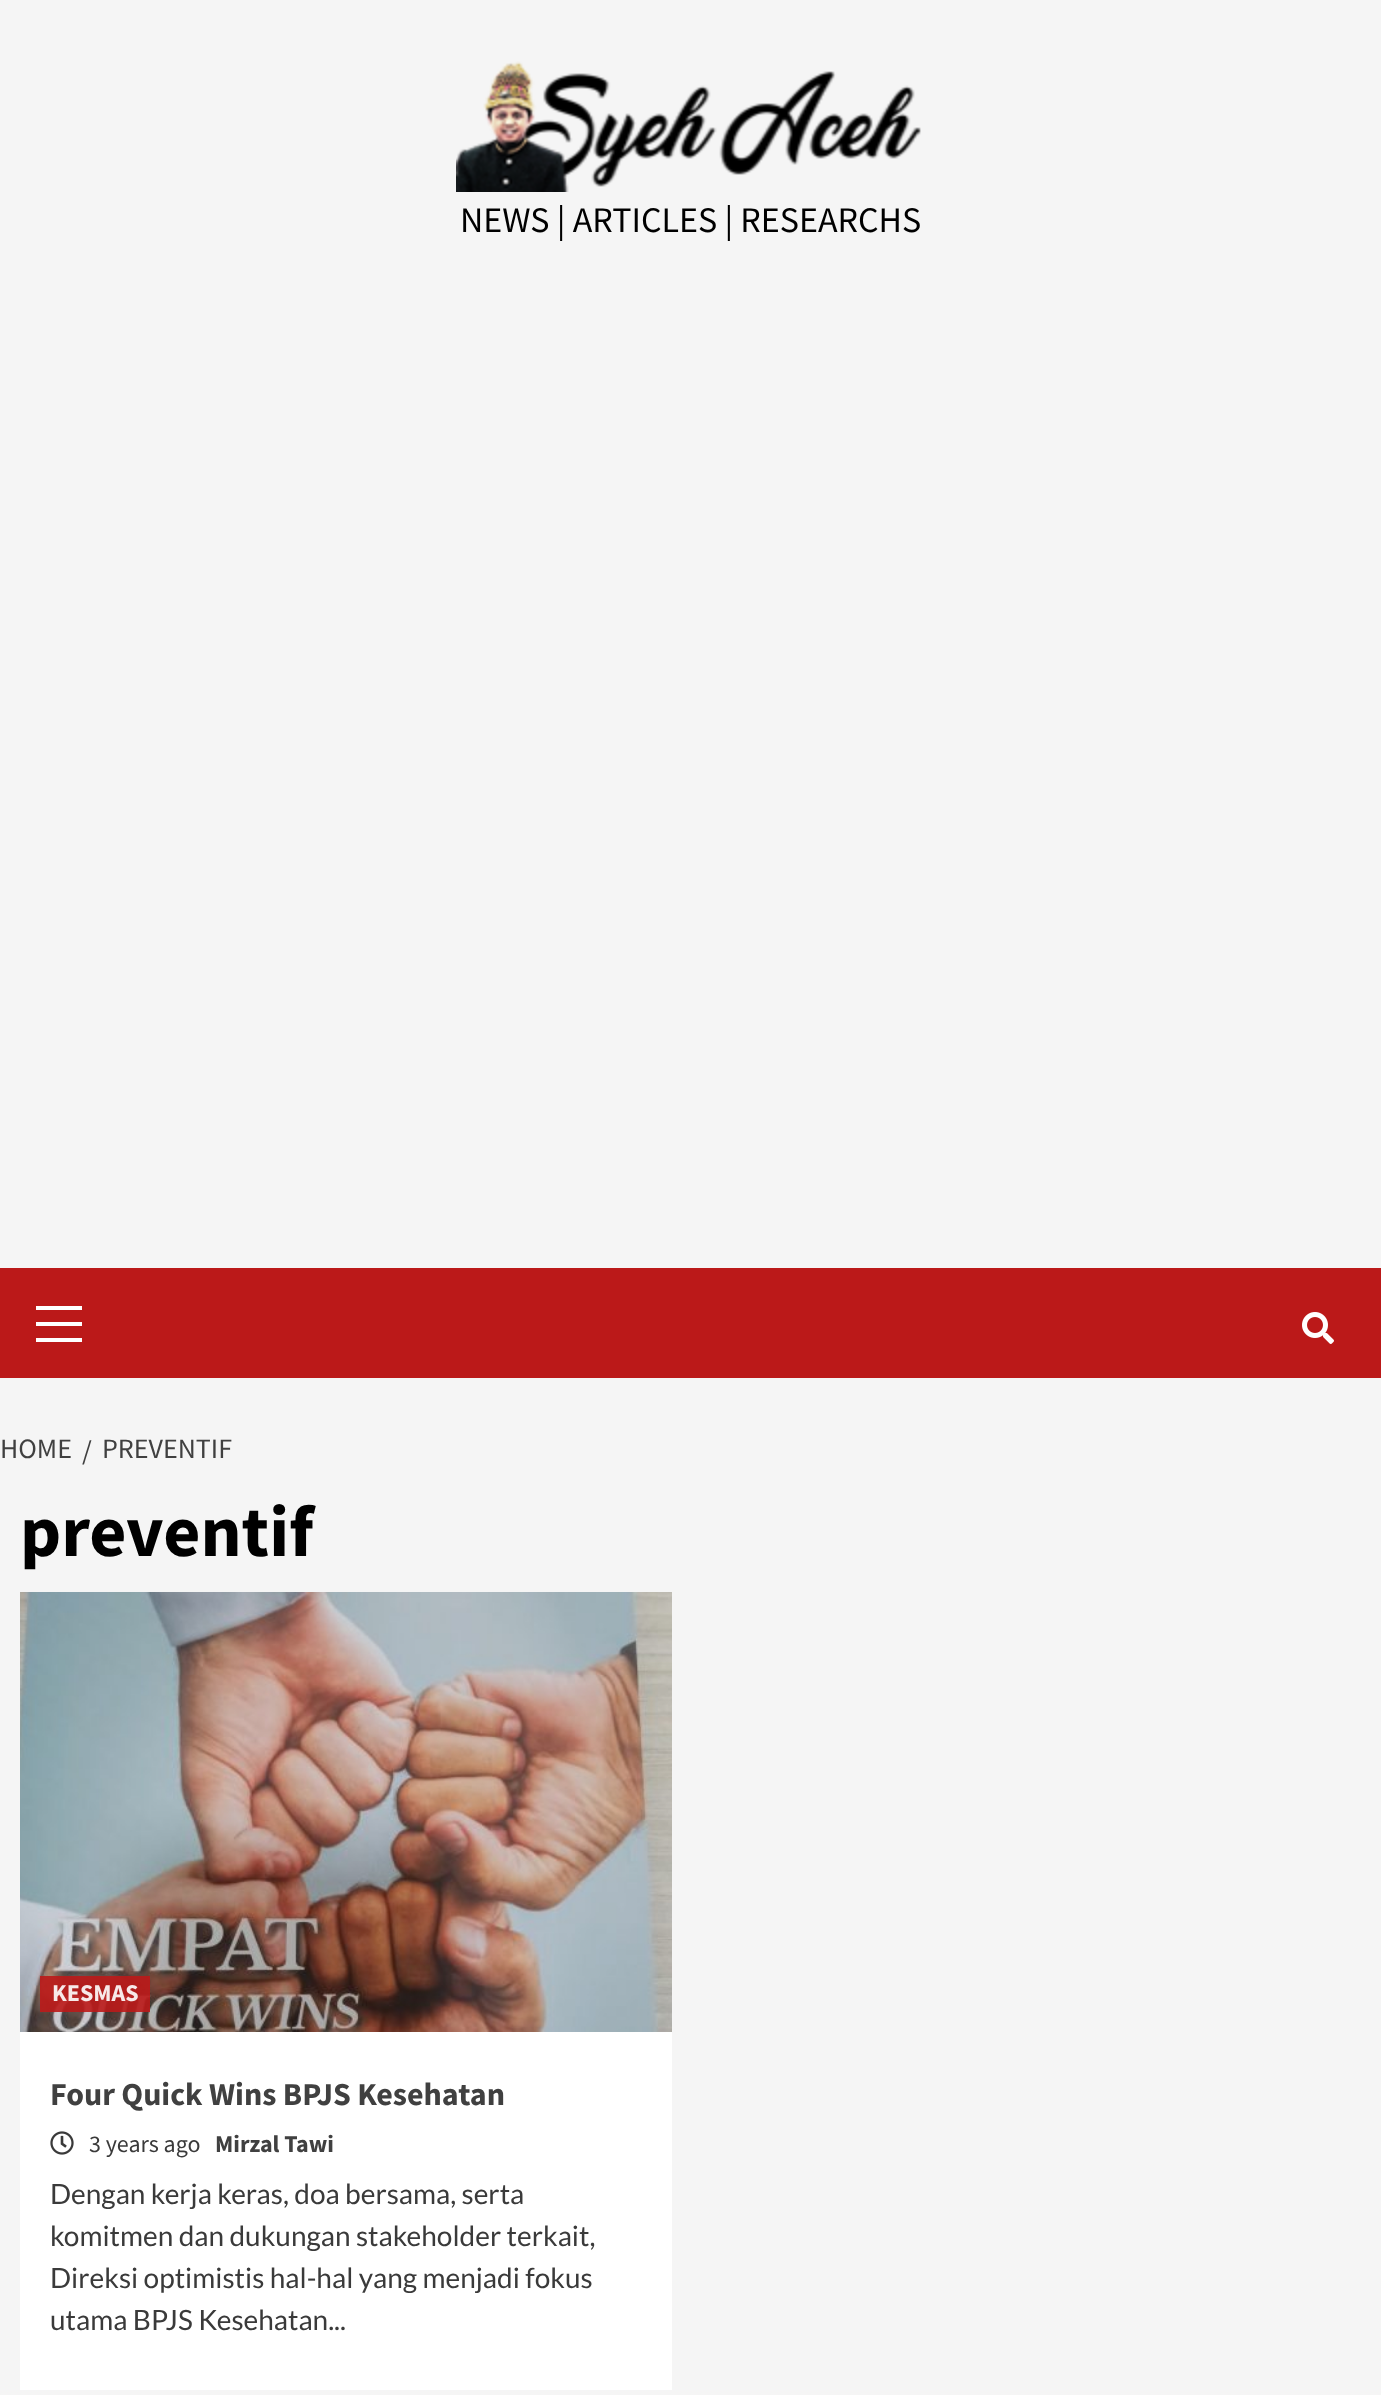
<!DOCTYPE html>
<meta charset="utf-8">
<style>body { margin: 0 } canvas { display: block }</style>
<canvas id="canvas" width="1381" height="2395"></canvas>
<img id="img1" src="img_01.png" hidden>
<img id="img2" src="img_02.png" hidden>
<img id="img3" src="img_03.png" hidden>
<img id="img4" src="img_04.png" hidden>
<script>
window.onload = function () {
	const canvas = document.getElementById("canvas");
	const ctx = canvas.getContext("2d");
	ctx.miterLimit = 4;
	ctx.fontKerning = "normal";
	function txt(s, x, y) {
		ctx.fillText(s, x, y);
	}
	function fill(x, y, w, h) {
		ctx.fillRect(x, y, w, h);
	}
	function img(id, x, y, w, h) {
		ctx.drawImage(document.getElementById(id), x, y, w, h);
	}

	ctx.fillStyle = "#F5F5F5";
	fill(0, 0, 1381, 2395);
	img("img1", 456, 61, 465, 131);
	ctx.fillStyle = "#BB1919";
	fill(0, 1268, 1381, 110);
	ctx.fillStyle = "#FFFFFF";
	fill(36, 1322, 46, 4);
	fill(36, 1306, 46, 4);
	fill(36, 1338, 46, 4);
	img("img2", 1302, 1312, 32, 32);
	fill(20, 2032, 652, 358);
	img("img3", 20, 1592, 652, 440);
	ctx.fillStyle = "rgba(187, 25, 25, 0.9)";
	fill(40, 1976, 110, 36);
	img("img4", 50, 2131, 24, 24);
	ctx.font = "36px Source Sans Pro";
	ctx.fillStyle = "#000000";
	txt("NEWS | ARTICLES | RESEARCHS", 460, 232);
	ctx.font = "28px Source Sans Pro";
	ctx.fillStyle = "#404040";
	txt("HOME", 0, 1458);
	txt("/", 82, 1460);
	txt("PREVENTIF", 102, 1458);
	ctx.font = "bold 72px Source Sans Pro";
	ctx.fillStyle = "#000000";
	txt("preventif", 20, 1556);
	ctx.font = "bold 24px Source Sans Pro";
	ctx.fillStyle = "#F7E9E9";
	txt("KESMAS", 52, 2001);
	ctx.font = "bold 32px Source Sans Pro";
	ctx.fillStyle = "#404040";
	txt("Four Quick Wins BPJS Kesehatan", 50, 2105);
	ctx.font = "24px Source Sans Pro";
	ctx.fillStyle = "#3A3A3A";
	txt("3 years ago", 89, 2152);
	ctx.font = "bold 24px Source Sans Pro";
	ctx.fillStyle = "#404040";
	txt("Mirzal Tawi", 215, 2152);
	ctx.font = "28px Lato";
	ctx.fillStyle = "#3A3A3A";
	txt("Dengan kerja keras, doa bersama, serta", 50, 2204);
	txt("komitmen dan dukungan stakeholder terkait,", 50, 2246);
	txt("Direksi optimistis hal-hal yang menjadi fokus", 50, 2288);
	txt("utama BPJS Kesehatan...", 50, 2330);
};
</script>
